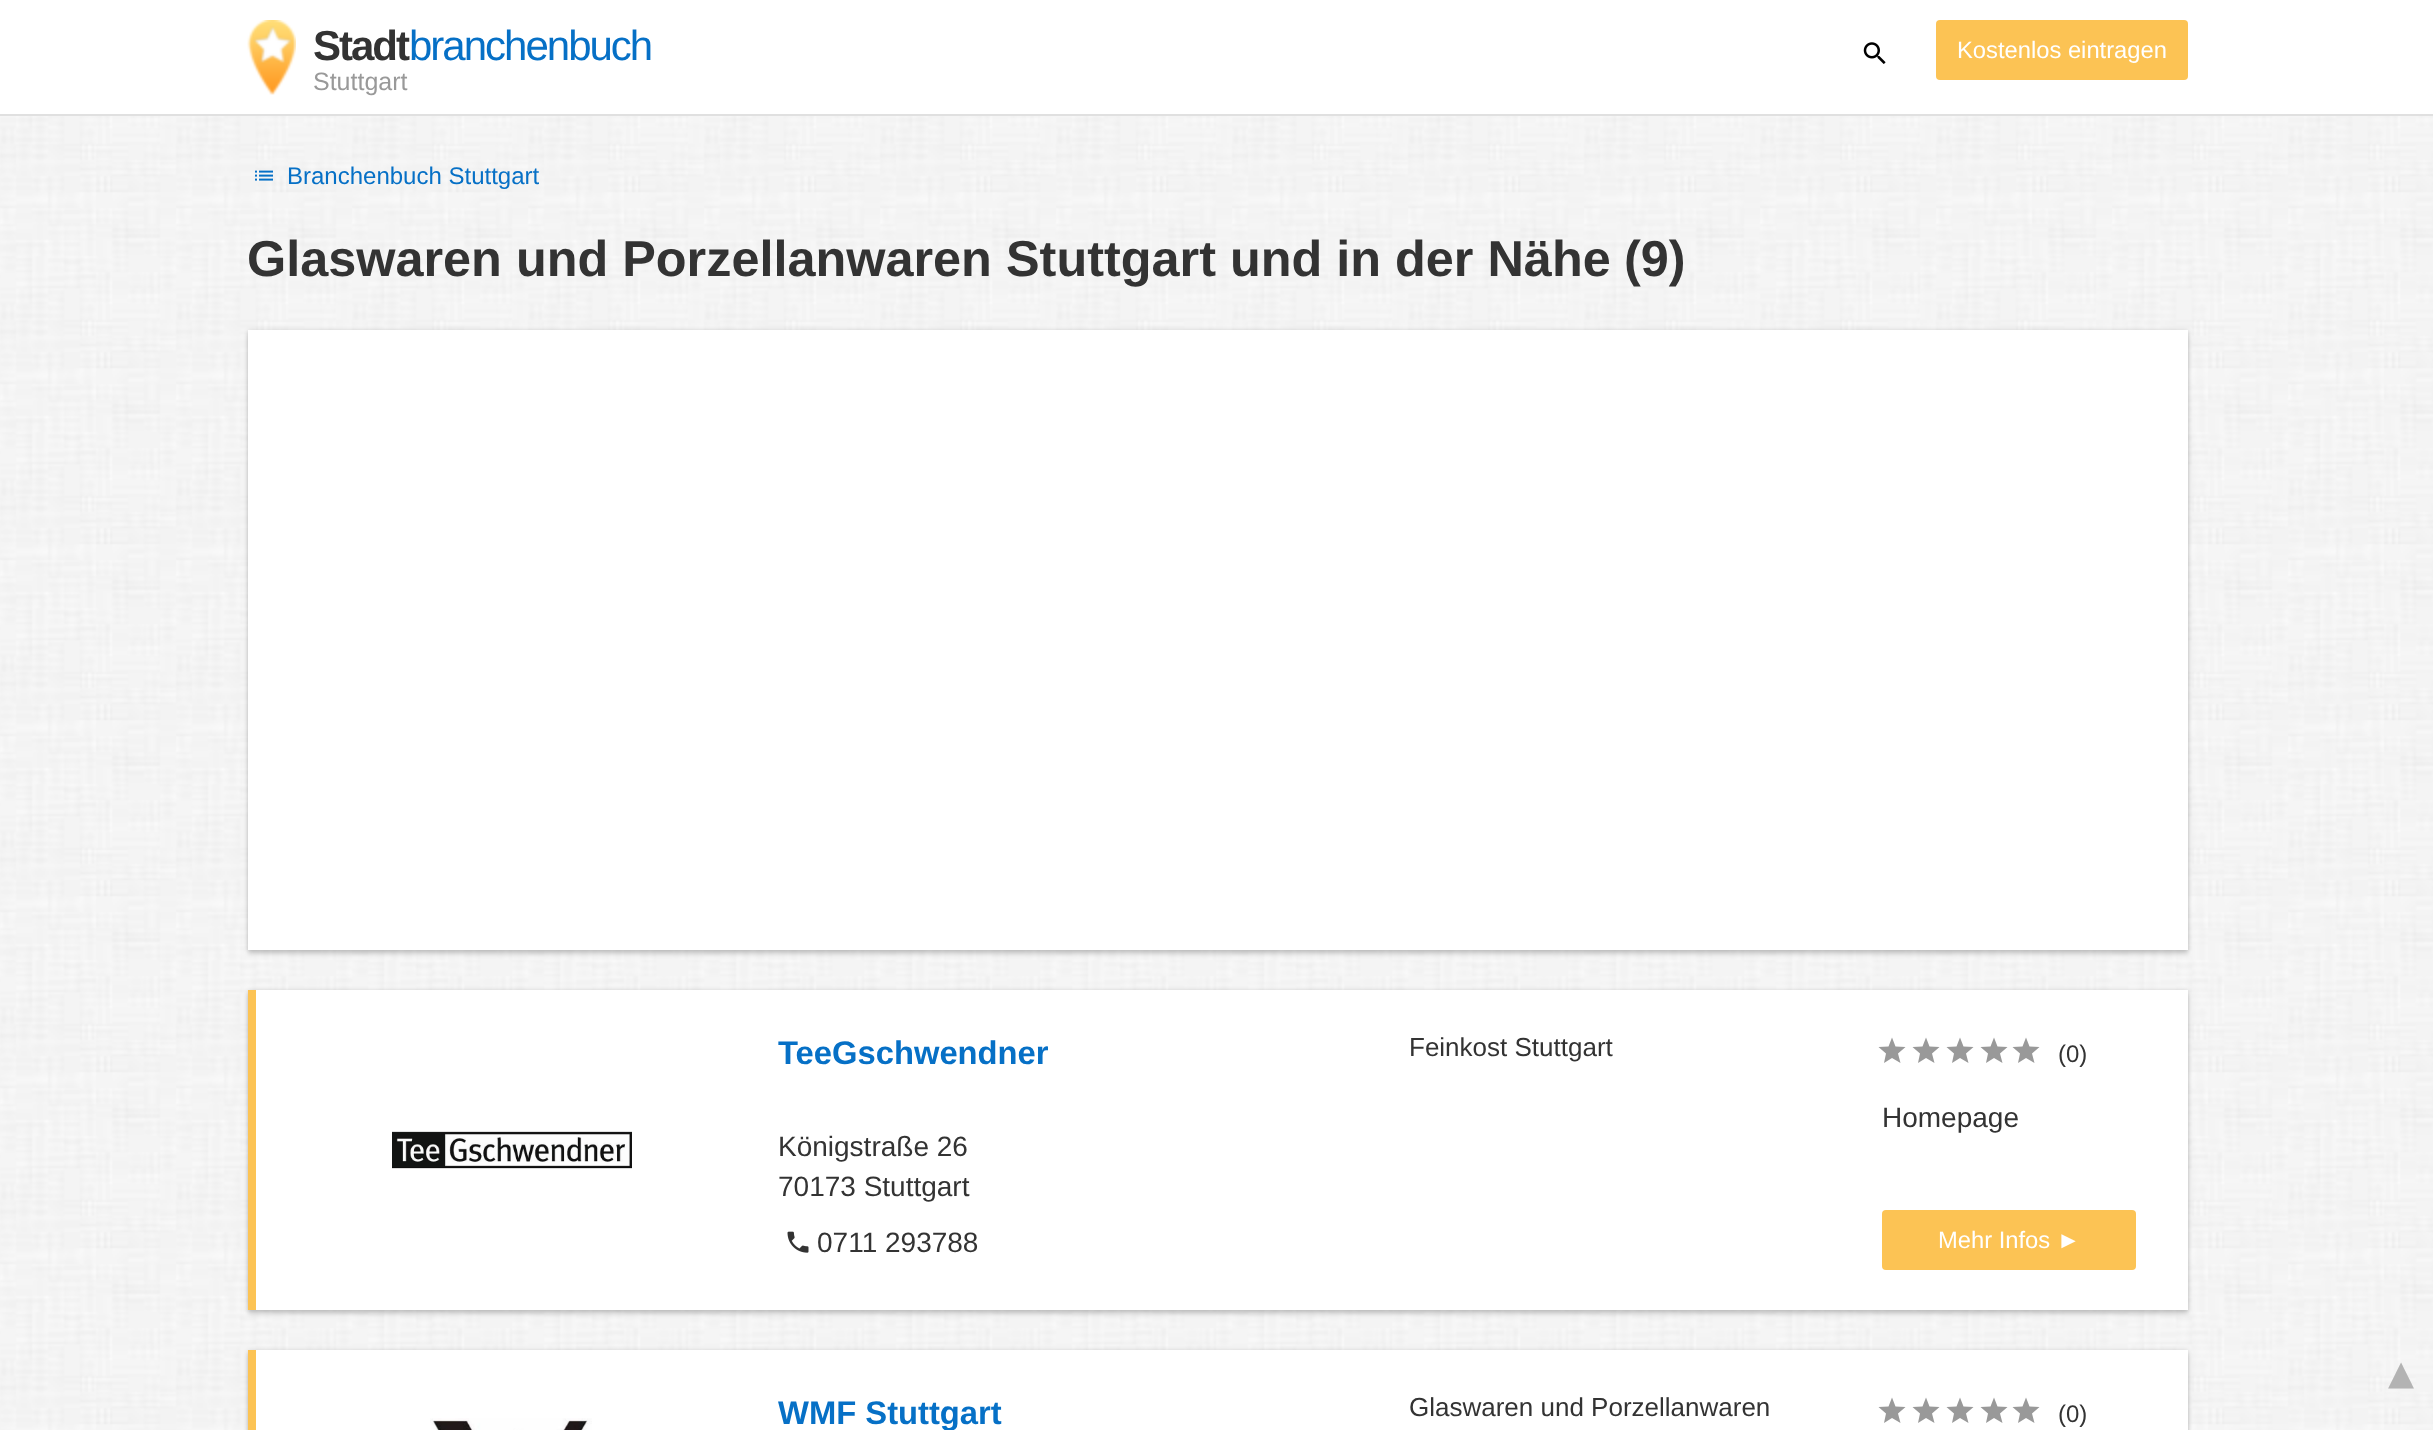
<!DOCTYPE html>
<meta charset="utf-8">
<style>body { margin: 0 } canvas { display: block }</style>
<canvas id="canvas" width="2433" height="1430"></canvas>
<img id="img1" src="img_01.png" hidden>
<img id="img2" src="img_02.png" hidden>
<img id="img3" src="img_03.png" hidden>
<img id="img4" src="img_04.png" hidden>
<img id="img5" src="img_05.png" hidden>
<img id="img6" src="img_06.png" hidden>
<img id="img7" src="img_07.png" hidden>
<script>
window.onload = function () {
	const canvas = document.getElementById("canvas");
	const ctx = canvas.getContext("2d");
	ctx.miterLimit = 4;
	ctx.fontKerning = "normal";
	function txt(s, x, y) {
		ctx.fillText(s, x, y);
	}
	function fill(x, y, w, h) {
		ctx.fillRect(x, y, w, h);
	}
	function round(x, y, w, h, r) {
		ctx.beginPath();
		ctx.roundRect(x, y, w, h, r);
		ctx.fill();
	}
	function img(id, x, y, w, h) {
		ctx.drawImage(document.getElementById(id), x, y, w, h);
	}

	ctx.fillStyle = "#FFFFFF";
	fill(0, 0, 2433, 1430);
	img("img1", 0, 116, 2433, 1314);
	ctx.fillStyle = "#E0E0E0";
	fill(0, 114, 2433, 2);
	img("img2", 247, 20, 49, 75);
	img("img3", 1863, 42, 23, 22);
	ctx.fillStyle = "#FCC354";
	round(1936, 20, 252, 60, 4);
	img("img4", 255, 170, 18, 11);
	ctx.fillStyle = "rgba(0, 0, 0, 0.12)";
	ctx.filter = "blur(2px)";
	ctx.beginPath();
	ctx.rect(248, 330, 1940, 620);
	ctx.fill();
	ctx.filter = "none";
	ctx.fillStyle = "rgba(0, 0, 0, 0.16)";
	ctx.filter = "blur(2px)";
	ctx.beginPath();
	ctx.rect(248, 334, 1940, 620);
	ctx.fill();
	ctx.filter = "none";
	ctx.fillStyle = "#FFFFFF";
	fill(248, 330, 1940, 620);
	ctx.fillStyle = "rgba(0, 0, 0, 0.12)";
	ctx.filter = "blur(2px)";
	ctx.beginPath();
	ctx.rect(248, 990, 1940, 320);
	ctx.fill();
	ctx.filter = "none";
	ctx.fillStyle = "rgba(0, 0, 0, 0.16)";
	ctx.filter = "blur(2px)";
	ctx.beginPath();
	ctx.rect(248, 994, 1940, 320);
	ctx.fill();
	ctx.filter = "none";
	ctx.fillStyle = "#FFFFFF";
	fill(256, 990, 1932, 320);
	ctx.fillStyle = "#FCC354";
	fill(248, 990, 8, 320);
	img("img5", 392, 1131, 240, 38);
	img("img6", 787, 1231, 22, 22);
	ctx.fillStyle = "#999999";
	ctx.beginPath();
	ctx.moveTo(1892, 1058);
	ctx.lineTo(1900.5, 1063);
	ctx.lineTo(1898, 1053.5);
	ctx.lineTo(1905.5, 1047);
	ctx.lineTo(1895.5, 1046.5);
	ctx.lineTo(1892, 1037.5);
	ctx.lineTo(1888.5, 1046.5);
	ctx.lineTo(1878.5, 1047);
	ctx.lineTo(1886, 1053.5);
	ctx.lineTo(1884, 1063);
	ctx.closePath();
	ctx.moveTo(1926, 1058);
	ctx.lineTo(1934.5, 1063);
	ctx.lineTo(1932, 1053.5);
	ctx.lineTo(1939.5, 1047);
	ctx.lineTo(1929.5, 1046.5);
	ctx.lineTo(1926, 1037.5);
	ctx.lineTo(1922.5, 1046.5);
	ctx.lineTo(1912.5, 1047);
	ctx.lineTo(1920, 1053.5);
	ctx.lineTo(1918, 1063);
	ctx.closePath();
	ctx.fill();
	ctx.beginPath();
	ctx.moveTo(1960, 1058);
	ctx.lineTo(1968.5, 1063);
	ctx.lineTo(1966, 1053.5);
	ctx.lineTo(1973.5, 1047);
	ctx.lineTo(1963.5, 1046.5);
	ctx.lineTo(1960, 1037.5);
	ctx.lineTo(1956.5, 1046.5);
	ctx.lineTo(1946.5, 1047);
	ctx.lineTo(1954, 1053.5);
	ctx.lineTo(1952, 1063);
	ctx.closePath();
	ctx.moveTo(1994, 1058);
	ctx.lineTo(2002.5, 1063);
	ctx.lineTo(2000, 1053.5);
	ctx.lineTo(2007.5, 1047);
	ctx.lineTo(1997.5, 1046.5);
	ctx.lineTo(1994, 1037.5);
	ctx.lineTo(1990.5, 1046.5);
	ctx.lineTo(1980.5, 1047);
	ctx.lineTo(1988, 1053.5);
	ctx.lineTo(1986, 1063);
	ctx.closePath();
	ctx.fill();
	ctx.beginPath();
	ctx.moveTo(2026, 1058);
	ctx.lineTo(2034.5, 1063);
	ctx.lineTo(2032, 1053.5);
	ctx.lineTo(2039.5, 1047);
	ctx.lineTo(2029.5, 1046.5);
	ctx.lineTo(2026, 1037.5);
	ctx.lineTo(2022.5, 1046.5);
	ctx.lineTo(2012.5, 1047);
	ctx.lineTo(2020, 1053.5);
	ctx.lineTo(2018, 1063);
	ctx.closePath();
	ctx.fill();
	ctx.fillStyle = "#FCC354";
	round(1882, 1210, 254, 60, 4);
	ctx.fillStyle = "rgba(0, 0, 0, 0.12)";
	ctx.filter = "blur(2px)";
	ctx.beginPath();
	ctx.rect(248, 1350, 1940, 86);
	ctx.fill();
	ctx.filter = "none";
	ctx.fillStyle = "rgba(0, 0, 0, 0.16)";
	ctx.filter = "blur(2px)";
	ctx.beginPath();
	ctx.rect(248, 1354, 1940, 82);
	ctx.fill();
	ctx.filter = "none";
	ctx.fillStyle = "#FFFFFF";
	fill(256, 1350, 1932, 80);
	ctx.fillStyle = "#FCC354";
	fill(248, 1350, 8, 80);
	img("img7", 430, 1418, 162, 12);
	ctx.fillStyle = "#999999";
	ctx.beginPath();
	ctx.moveTo(1892, 1418);
	ctx.lineTo(1900.5, 1423);
	ctx.lineTo(1898, 1413.5);
	ctx.lineTo(1905.5, 1407);
	ctx.lineTo(1895.5, 1406.5);
	ctx.lineTo(1892, 1397.5);
	ctx.lineTo(1888.5, 1406.5);
	ctx.lineTo(1878.5, 1407);
	ctx.lineTo(1886, 1413.5);
	ctx.lineTo(1884, 1423);
	ctx.closePath();
	ctx.moveTo(1926, 1418);
	ctx.lineTo(1934.5, 1423);
	ctx.lineTo(1932, 1413.5);
	ctx.lineTo(1939.5, 1407);
	ctx.lineTo(1929.5, 1406.5);
	ctx.lineTo(1926, 1397.5);
	ctx.lineTo(1922.5, 1406.5);
	ctx.lineTo(1912.5, 1407);
	ctx.lineTo(1920, 1413.5);
	ctx.lineTo(1918, 1423);
	ctx.closePath();
	ctx.fill();
	ctx.beginPath();
	ctx.moveTo(1960, 1418);
	ctx.lineTo(1968.5, 1423);
	ctx.lineTo(1966, 1413.5);
	ctx.lineTo(1973.5, 1407);
	ctx.lineTo(1963.5, 1406.5);
	ctx.lineTo(1960, 1397.5);
	ctx.lineTo(1956.5, 1406.5);
	ctx.lineTo(1946.5, 1407);
	ctx.lineTo(1954, 1413.5);
	ctx.lineTo(1952, 1423);
	ctx.closePath();
	ctx.moveTo(1994, 1418);
	ctx.lineTo(2002.5, 1423);
	ctx.lineTo(2000, 1413.5);
	ctx.lineTo(2007.5, 1407);
	ctx.lineTo(1997.5, 1406.5);
	ctx.lineTo(1994, 1397.5);
	ctx.lineTo(1990.5, 1406.5);
	ctx.lineTo(1980.5, 1407);
	ctx.lineTo(1988, 1413.5);
	ctx.lineTo(1986, 1423);
	ctx.closePath();
	ctx.fill();
	ctx.beginPath();
	ctx.moveTo(2026, 1418);
	ctx.lineTo(2034.5, 1423);
	ctx.lineTo(2032, 1413.5);
	ctx.lineTo(2039.5, 1407);
	ctx.lineTo(2029.5, 1406.5);
	ctx.lineTo(2026, 1397.5);
	ctx.lineTo(2022.5, 1406.5);
	ctx.lineTo(2012.5, 1407);
	ctx.lineTo(2020, 1413.5);
	ctx.lineTo(2018, 1423);
	ctx.closePath();
	ctx.fill();
	ctx.letterSpacing = "-2px";
	ctx.font = "bold 42px Liberation Sans";
	ctx.fillStyle = "#333333";
	txt("Stadt", 313, 60);
	ctx.font = "42px Liberation Sans";
	ctx.fillStyle = "#0670C6";
	txt("branchenbuch", 409, 60);
	ctx.letterSpacing = "0px";
	ctx.font = "25px Liberation Sans";
	ctx.fillStyle = "#999999";
	txt("Stuttgart", 313, 90);
	ctx.font = "23.75px Liberation Sans";
	ctx.fillStyle = "#FFFFFF";
	txt("Kostenlos eintragen", 1957, 58);
	ctx.font = "24px Liberation Sans";
	ctx.fillStyle = "#0670C6";
	txt("Branchenbuch Stuttgart", 287, 184);
	ctx.font = "bold 50.4px Liberation Sans";
	ctx.fillStyle = "#333333";
	txt("Glaswaren und Porzellanwaren", 247, 276);
	txt("Stuttgart und in der Nähe", 1006, 276);
	txt("(9)", 1624, 276);
	ctx.font = "bold 32.75px Liberation Sans";
	ctx.fillStyle = "#0670C6";
	txt("TeeGschwendner", 778, 1064);
	ctx.font = "28px Liberation Sans";
	ctx.fillStyle = "#333333";
	txt("Königstraße 26", 778, 1156);
	txt("70173 Stuttgart", 778, 1196);
	txt("0711 293788", 817, 1252);
	ctx.font = "26px Liberation Sans";
	txt("Feinkost Stuttgart", 1409, 1056);
	ctx.font = "24px Liberation Sans";
	txt("(0)", 2058, 1062);
	ctx.font = "28px Liberation Sans";
	txt("Homepage", 1882, 1127);
	ctx.font = "23.75px Liberation Sans";
	ctx.fillStyle = "#FFFFFF";
	txt("Mehr Infos ►", 1938, 1248);
	ctx.font = "bold 32.75px Liberation Sans";
	ctx.fillStyle = "#0670C6";
	txt("WMF Stuttgart", 778, 1424);
	ctx.font = "26px Liberation Sans";
	ctx.fillStyle = "#333333";
	txt("Glaswaren und Porzellanwaren", 1409, 1416);
	ctx.font = "24px Liberation Sans";
	txt("(0)", 2058, 1422);
	ctx.font = "52px DejaVu Sans";
	ctx.fillStyle = "#B3B3B3";
	txt("▴", 2388, 1389);
};
</script>
